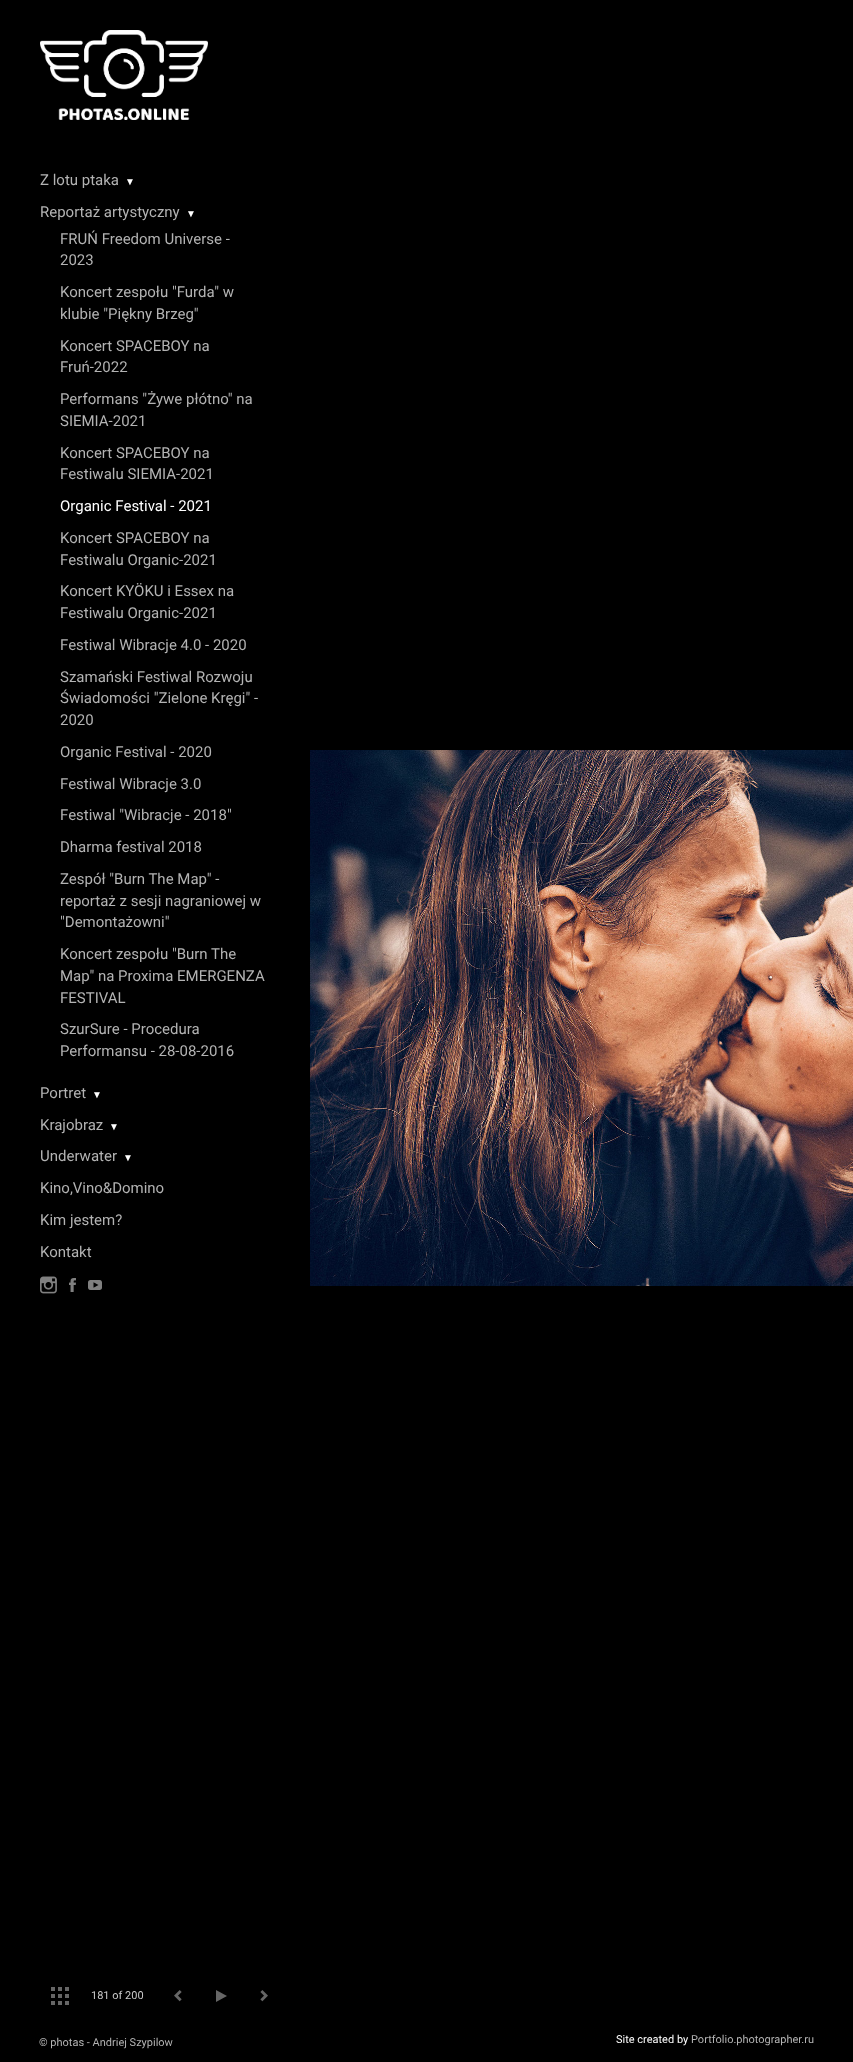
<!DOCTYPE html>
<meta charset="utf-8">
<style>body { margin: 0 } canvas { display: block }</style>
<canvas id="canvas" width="853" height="2062"></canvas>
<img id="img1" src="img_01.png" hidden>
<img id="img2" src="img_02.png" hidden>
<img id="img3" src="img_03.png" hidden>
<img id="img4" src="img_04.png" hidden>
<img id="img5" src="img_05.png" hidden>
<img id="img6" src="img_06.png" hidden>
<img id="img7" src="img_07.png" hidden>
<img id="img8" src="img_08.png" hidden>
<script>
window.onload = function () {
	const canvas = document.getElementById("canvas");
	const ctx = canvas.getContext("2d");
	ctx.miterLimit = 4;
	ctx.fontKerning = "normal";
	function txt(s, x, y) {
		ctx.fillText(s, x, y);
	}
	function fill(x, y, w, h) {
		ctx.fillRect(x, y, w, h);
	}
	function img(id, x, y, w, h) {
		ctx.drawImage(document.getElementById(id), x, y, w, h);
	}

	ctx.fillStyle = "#000000";
	fill(0, 0, 853, 2062);
	img("img1", 40, 30, 168, 90);
	img("img2", 40, 1276, 17, 18);
	img("img3", 69, 1278, 7, 14);
	img("img4", 88, 1280, 14, 10);
	img("img5", 51, 1987, 18, 18);
	img("img6", 174, 1990, 8, 12);
	ctx.fillStyle = "#666666";
	ctx.beginPath();
	ctx.moveTo(227, 1996);
	ctx.lineTo(216, 2002);
	ctx.lineTo(216, 1990);
	ctx.closePath();
	ctx.fill();
	img("img7", 260, 1990, 8, 12);
	img("img8", 310, 750, 543, 536);
	ctx.font = "15px Roboto";
	ctx.fillStyle = "#B3B3B3";
	txt("Z lotu ptaka", 40, 185);
	ctx.font = "10px Liberation Serif";
	ctx.fillStyle = "#FFFFFF";
	txt("▼", 125, 185);
	ctx.font = "15px Roboto";
	ctx.fillStyle = "#B3B3B3";
	txt("Reportaż artystyczny", 40, 217);
	ctx.font = "10px Liberation Serif";
	ctx.fillStyle = "#FFFFFF";
	txt("▼", 186, 217);
	ctx.font = "15px Roboto";
	ctx.fillStyle = "#B3B3B3";
	txt("FRUŃ Freedom Universe -", 60, 244);
	txt("2023", 60, 265);
	txt("Koncert zespołu \"Furda\" w", 60, 297);
	txt("klubie \"Piękny Brzeg\"", 60, 319);
	txt("Koncert SPACEBOY na", 60, 351);
	txt("Fruń-2022", 60, 372);
	txt("Performans \"Żywe płótno\" na", 60, 404);
	txt("SIEMIA-2021", 60, 426);
	txt("Koncert SPACEBOY na", 60, 458);
	txt("Festiwalu SIEMIA-2021", 60, 479);
	ctx.fillStyle = "#FFFFFF";
	txt("Organic Festival - 2021", 60, 511);
	ctx.fillStyle = "#B3B3B3";
	txt("Koncert SPACEBOY na", 60, 543);
	txt("Festiwalu Organic-2021", 60, 565);
	txt("Koncert KYÖKU i Essex na", 60, 596);
	txt("Festiwalu Organic-2021", 60, 618);
	txt("Festiwal Wibracje 4.0 - 2020", 60, 650);
	txt("Szamański Festiwal Rozwoju", 60, 682);
	txt("Świadomości \"Zielone Kręgi\" -", 60, 703);
	txt("2020", 60, 725);
	txt("Organic Festival - 2020", 60, 757);
	txt("Festiwal Wibracje 3.0", 60, 789);
	txt("Festiwal \"Wibracje - 2018\"", 60, 820);
	txt("Dharma festival 2018", 60, 852);
	txt("Zespół \"Burn The Map\" -", 60, 884);
	txt("reportaż z sesji nagraniowej w", 60, 906);
	txt("\"Demontażowni\"", 60, 927);
	txt("Koncert zespołu \"Burn The", 60, 959);
	txt("Map\" na Proxima EMERGENZA", 60, 981);
	txt("FESTIVAL", 60, 1003);
	txt("SzurSure - Procedura", 60, 1034);
	txt("Performansu - 28-08-2016", 60, 1056);
	txt("Portret", 40, 1098);
	ctx.font = "10px Liberation Serif";
	ctx.fillStyle = "#FFFFFF";
	txt("▼", 92, 1098);
	ctx.font = "15px Roboto";
	ctx.fillStyle = "#B3B3B3";
	txt("Krajobraz", 40, 1130);
	ctx.font = "10px Liberation Serif";
	ctx.fillStyle = "#FFFFFF";
	txt("▼", 109, 1130);
	ctx.font = "15px Roboto";
	ctx.fillStyle = "#B3B3B3";
	txt("Underwater", 40, 1161);
	ctx.font = "10px Liberation Serif";
	ctx.fillStyle = "#FFFFFF";
	txt("▼", 123, 1161);
	ctx.font = "15px Roboto";
	ctx.fillStyle = "#B3B3B3";
	txt("Kino,Vino&Domino", 40, 1193);
	txt("Kim jestem?", 40, 1225);
	txt("Kontakt", 40, 1257);
	ctx.font = "11px Roboto";
	ctx.fillStyle = "#CCCCCC";
	txt("181 of 200", 91, 1999);
	ctx.fillStyle = "#B3B3B3";
	txt("© photas - Andriej Szypilow", 39, 2046);
	ctx.fillStyle = "#FFFFFF";
	txt("Site created by", 616, 2043);
	ctx.fillStyle = "#B3B3B3";
	txt("Portfolio.photographer.ru", 691, 2043);
};
</script>
